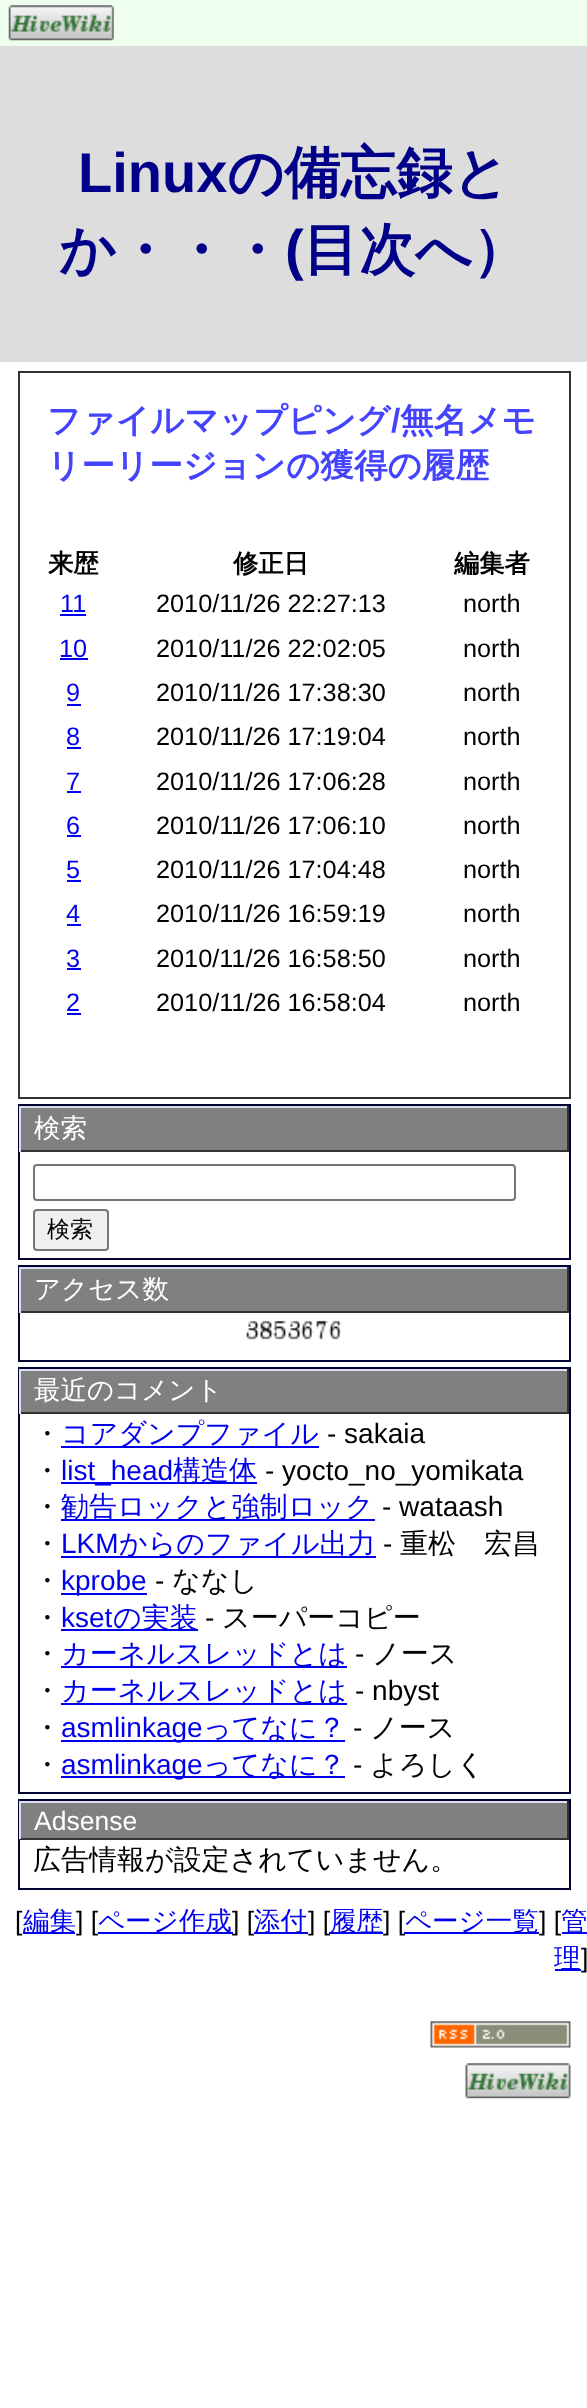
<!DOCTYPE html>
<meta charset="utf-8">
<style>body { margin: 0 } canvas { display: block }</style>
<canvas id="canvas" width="587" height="2408"></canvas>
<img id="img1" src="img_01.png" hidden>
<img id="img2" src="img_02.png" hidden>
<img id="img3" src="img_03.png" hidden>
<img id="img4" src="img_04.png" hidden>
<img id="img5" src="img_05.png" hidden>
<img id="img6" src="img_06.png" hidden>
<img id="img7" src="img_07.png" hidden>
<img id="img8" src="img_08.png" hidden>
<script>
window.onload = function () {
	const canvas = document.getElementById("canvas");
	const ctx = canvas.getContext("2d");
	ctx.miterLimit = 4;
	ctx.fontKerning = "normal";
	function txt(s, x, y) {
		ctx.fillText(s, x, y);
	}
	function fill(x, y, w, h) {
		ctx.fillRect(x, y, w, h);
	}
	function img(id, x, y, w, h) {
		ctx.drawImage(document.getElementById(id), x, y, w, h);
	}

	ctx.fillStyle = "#FFFFFF";
	fill(0, 0, 587, 2408);
	ctx.fillStyle = "#EEFFEE";
	fill(0, 0, 587, 46);
	img("img1", 8, 5, 106, 36);
	ctx.fillStyle = "#DDDDDD";
	fill(0, 46, 587, 316);
	ctx.strokeStyle = "#333333";
	ctx.lineWidth = 2;
	ctx.strokeRect(19, 372, 551, 726);
	ctx.fillStyle = "#0000EE";
	fill(60, 614, 26, 2);
	fill(60, 658, 28, 2);
	fill(67, 704, 14, 2);
	fill(67, 747, 14, 2);
	fill(67, 791, 14, 2);
	fill(67, 835, 14, 2);
	fill(67, 880, 14, 2);
	fill(67, 924, 14, 2);
	fill(67, 968, 14, 2);
	fill(67, 1013, 14, 2);
	ctx.strokeStyle = "#000333";
	ctx.strokeRect(19, 1105, 551, 154);
	ctx.fillStyle = "#808080";
	fill(21, 1108, 546, 42);
	ctx.fillStyle = "#DDDDEE";
	fill(19, 1106, 550, 2);
	ctx.fillStyle = "#333333";
	fill(567, 1106, 2, 46);
	fill(19, 1150, 550, 2);
	ctx.fillStyle = "#DDDDEE";
	fill(19, 1106, 2, 46);
	ctx.beginPath();
	ctx.roundRect(34, 1165, 481, 35, 3);
	ctx.strokeStyle = "#767676";
	ctx.stroke();
	ctx.fillStyle = "#EFEFEF";
	ctx.beginPath();
	ctx.roundRect(34, 1210, 74, 40, 3);
	ctx.fill();
	ctx.stroke();
	ctx.strokeStyle = "#000333";
	ctx.strokeRect(19, 1266, 551, 95);
	ctx.fillStyle = "#808080";
	fill(21, 1269, 546, 42);
	ctx.fillStyle = "#DDDDEE";
	fill(19, 1267, 550, 2);
	ctx.fillStyle = "#333333";
	fill(567, 1267, 2, 46);
	fill(19, 1311, 550, 2);
	ctx.fillStyle = "#DDDDEE";
	fill(19, 1267, 2, 46);
	img("img2", 246, 1320, 13, 20);
	img("img3", 259, 1320, 14, 20);
	img("img4", 273, 1320, 13, 20);
	img("img2", 288, 1320, 13, 20);
	img("img5", 301, 1320, 13, 20);
	img("img6", 315, 1320, 13, 20);
	img("img5", 329, 1320, 13, 20);
	ctx.strokeRect(19, 1368, 551, 425);
	ctx.fillStyle = "#808080";
	fill(21, 1371, 546, 41);
	ctx.fillStyle = "#DDDDEE";
	fill(19, 1369, 550, 2);
	ctx.fillStyle = "#333333";
	fill(567, 1369, 2, 45);
	fill(19, 1412, 550, 2);
	ctx.fillStyle = "#DDDDEE";
	fill(19, 1369, 2, 45);
	ctx.fillStyle = "#0000EE";
	fill(61, 1446, 258, 2);
	fill(61, 1482, 196, 2);
	fill(61, 1519, 314, 2);
	fill(61, 1556, 315, 2);
	fill(61, 1593, 86, 2);
	fill(61, 1629, 137, 2);
	fill(61, 1666, 286, 2);
	fill(61, 1703, 286, 2);
	fill(61, 1740, 284, 2);
	fill(61, 1776, 284, 2);
	ctx.strokeRect(19, 1800, 551, 89);
	ctx.fillStyle = "#808080";
	fill(21, 1803, 546, 35);
	ctx.fillStyle = "#DDDDEE";
	fill(19, 1801, 550, 2);
	ctx.fillStyle = "#333333";
	fill(567, 1801, 2, 38);
	fill(19, 1838, 550, 2);
	ctx.fillStyle = "#DDDDEE";
	fill(19, 1801, 2, 38);
	ctx.fillStyle = "#0000EE";
	fill(23, 1932, 52, 2);
	fill(98, 1932, 135, 2);
	fill(562, 1932, 25, 2);
	fill(555, 1969, 26, 2);
	img("img7", 430, 2021, 141, 27);
	img("img8", 465, 2063, 106, 36);
	ctx.font = "bold 56px Liberation Sans";
	ctx.fillStyle = "#000088";
	txt("Linux", 78, 192);
	ctx.font = "bold 56px WenQuanYi Zen Hei";
	txt("の備忘録と", 227, 192);
	txt("か・・・", 59, 269);
	ctx.font = "bold 56px Liberation Sans";
	txt("(", 285, 269);
	ctx.font = "bold 56px WenQuanYi Zen Hei";
	txt("目次へ）", 303, 269);
	ctx.font = "bold 33.6px WenQuanYi Zen Hei";
	ctx.fillStyle = "#4444FF";
	txt("ファイルマップピング", 47, 432);
	ctx.font = "bold 33.6px Liberation Sans";
	txt("/", 391, 432);
	ctx.font = "bold 33.6px WenQuanYi Zen Hei";
	txt("無名メモ", 400, 432);
	txt("リーリージョンの獲得の履歴", 47, 477);
	ctx.font = "bold 25.25px WenQuanYi Zen Hei";
	ctx.fillStyle = "#000000";
	txt("来歴", 48, 572);
	txt("修正日", 233, 572);
	txt("編集者", 454, 572);
	ctx.font = "25.25px Liberation Sans";
	ctx.fillStyle = "#0000EE";
	txt("11", 60, 612);
	ctx.fillStyle = "#000000";
	txt("2010/11/26 22:27:13", 156, 612);
	txt("north", 463, 612);
	ctx.fillStyle = "#0000EE";
	txt("10", 59, 657);
	ctx.fillStyle = "#000000";
	txt("2010/11/26 22:02:05", 156, 657);
	txt("north", 463, 657);
	ctx.fillStyle = "#0000EE";
	txt("9", 66, 701);
	ctx.fillStyle = "#000000";
	txt("2010/11/26 17:38:30", 156, 701);
	txt("north", 463, 701);
	ctx.fillStyle = "#0000EE";
	txt("8", 66, 745);
	ctx.fillStyle = "#000000";
	txt("2010/11/26 17:19:04", 156, 745);
	txt("north", 463, 745);
	ctx.fillStyle = "#0000EE";
	txt("7", 66, 790);
	ctx.fillStyle = "#000000";
	txt("2010/11/26 17:06:28", 156, 790);
	txt("north", 463, 790);
	ctx.fillStyle = "#0000EE";
	txt("6", 66, 834);
	ctx.fillStyle = "#000000";
	txt("2010/11/26 17:06:10", 156, 834);
	txt("north", 463, 834);
	ctx.fillStyle = "#0000EE";
	txt("5", 66, 878);
	ctx.fillStyle = "#000000";
	txt("2010/11/26 17:04:48", 156, 878);
	txt("north", 463, 878);
	ctx.fillStyle = "#0000EE";
	txt("4", 66, 922);
	ctx.fillStyle = "#000000";
	txt("2010/11/26 16:59:19", 156, 922);
	txt("north", 463, 922);
	ctx.fillStyle = "#0000EE";
	txt("3", 66, 967);
	ctx.fillStyle = "#000000";
	txt("2010/11/26 16:58:50", 156, 967);
	txt("north", 463, 967);
	ctx.fillStyle = "#0000EE";
	txt("2", 66, 1011);
	ctx.fillStyle = "#000000";
	txt("2010/11/26 16:58:04", 156, 1011);
	txt("north", 463, 1011);
	ctx.font = "500 26.5px WenQuanYi Zen Hei";
	ctx.fillStyle = "#FFFFFF";
	txt("検索", 34, 1137);
	ctx.font = "500 23px WenQuanYi Zen Hei";
	ctx.fillStyle = "#000000";
	txt("検索", 47, 1237);
	ctx.font = "500 26.5px WenQuanYi Zen Hei";
	ctx.fillStyle = "#FFFFFF";
	txt("アクセス数", 34, 1298);
	txt("最近のコメント", 34, 1399);
	ctx.font = "500 28px WenQuanYi Zen Hei";
	ctx.fillStyle = "#000000";
	txt("・", 33, 1443);
	ctx.fillStyle = "#0000EE";
	txt("コアダンプファイル", 61, 1443);
	ctx.font = "28px Liberation Sans";
	ctx.fillStyle = "#000000";
	txt("- sakaia", 327, 1443);
	ctx.font = "500 28px WenQuanYi Zen Hei";
	txt("・", 33, 1480);
	ctx.font = "28px Liberation Sans";
	ctx.fillStyle = "#0000EE";
	txt("list_head", 61, 1480);
	ctx.font = "500 28px WenQuanYi Zen Hei";
	txt("構造体", 173, 1480);
	ctx.font = "28px Liberation Sans";
	ctx.fillStyle = "#000000";
	txt("- yocto_no_yomikata", 265, 1480);
	ctx.font = "500 28px WenQuanYi Zen Hei";
	txt("・", 33, 1516);
	ctx.fillStyle = "#0000EE";
	txt("勧告ロックと強制ロック", 61, 1516);
	ctx.font = "28px Liberation Sans";
	ctx.fillStyle = "#000000";
	txt("- wataash", 382, 1516);
	ctx.font = "500 28px WenQuanYi Zen Hei";
	txt("・", 33, 1553);
	ctx.font = "28px Liberation Sans";
	ctx.fillStyle = "#0000EE";
	txt("LKM", 61, 1553);
	ctx.font = "500 28px WenQuanYi Zen Hei";
	txt("からのファイル出力", 119, 1553);
	ctx.font = "28px Liberation Sans";
	ctx.fillStyle = "#000000";
	txt("-", 383, 1553);
	ctx.font = "500 28px WenQuanYi Zen Hei";
	txt("重松　宏昌", 400, 1553);
	txt("・", 33, 1590);
	ctx.font = "28px Liberation Sans";
	ctx.fillStyle = "#0000EE";
	txt("kprobe", 61, 1590);
	ctx.fillStyle = "#000000";
	txt("-", 155, 1590);
	ctx.font = "500 28px WenQuanYi Zen Hei";
	txt("ななし", 172, 1590);
	txt("・", 33, 1627);
	ctx.font = "28px Liberation Sans";
	ctx.fillStyle = "#0000EE";
	txt("kset", 61, 1627);
	ctx.font = "500 28px WenQuanYi Zen Hei";
	txt("の実装", 113, 1627);
	ctx.font = "28px Liberation Sans";
	ctx.fillStyle = "#000000";
	txt("-", 205, 1627);
	ctx.font = "500 28px WenQuanYi Zen Hei";
	txt("スーパーコピー", 222, 1627);
	txt("・", 33, 1663);
	ctx.fillStyle = "#0000EE";
	txt("カーネルスレッドとは", 61, 1663);
	ctx.font = "28px Liberation Sans";
	ctx.fillStyle = "#000000";
	txt("-", 355, 1663);
	ctx.font = "500 28px WenQuanYi Zen Hei";
	txt("ノース", 372, 1663);
	txt("・", 33, 1700);
	ctx.fillStyle = "#0000EE";
	txt("カーネルスレッドとは", 61, 1700);
	ctx.font = "28px Liberation Sans";
	ctx.fillStyle = "#000000";
	txt("- nbyst", 355, 1700);
	ctx.font = "500 28px WenQuanYi Zen Hei";
	txt("・", 33, 1737);
	ctx.font = "28px Liberation Sans";
	ctx.fillStyle = "#0000EE";
	txt("asmlinkage", 61, 1737);
	ctx.font = "500 28px WenQuanYi Zen Hei";
	txt("ってなに？", 203, 1737);
	ctx.font = "28px Liberation Sans";
	ctx.fillStyle = "#000000";
	txt("-", 353, 1737);
	ctx.font = "500 28px WenQuanYi Zen Hei";
	txt("ノース", 370, 1737);
	txt("・", 33, 1774);
	ctx.font = "28px Liberation Sans";
	ctx.fillStyle = "#0000EE";
	txt("asmlinkage", 61, 1774);
	ctx.font = "500 28px WenQuanYi Zen Hei";
	txt("ってなに？", 203, 1774);
	ctx.font = "28px Liberation Sans";
	ctx.fillStyle = "#000000";
	txt("-", 353, 1774);
	ctx.font = "500 28px WenQuanYi Zen Hei";
	txt("よろしく", 370, 1774);
	ctx.font = "26.5px Liberation Sans";
	ctx.fillStyle = "#FFFFFF";
	txt("Adsense", 34, 1830);
	ctx.font = "500 28px WenQuanYi Zen Hei";
	ctx.fillStyle = "#000000";
	txt("広告情報が設定されていません。", 33, 1869);
	ctx.font = "26.5px Liberation Sans";
	txt("[", 15, 1930);
	ctx.font = "500 26.5px WenQuanYi Zen Hei";
	ctx.fillStyle = "#0000EE";
	txt("編集", 23, 1930);
	ctx.font = "26.5px Liberation Sans";
	ctx.fillStyle = "#000000";
	txt("] [", 76, 1930);
	ctx.font = "500 26.5px WenQuanYi Zen Hei";
	ctx.fillStyle = "#0000EE";
	txt("ページ作成", 98, 1930);
	ctx.font = "26.5px Liberation Sans";
	ctx.fillStyle = "#000000";
	txt("] [", 232, 1930);
	ctx.fillStyle = "#0000EE";
	fill(254, 1932, 54, 2);
	ctx.font = "500 26.5px WenQuanYi Zen Hei";
	txt("添付", 254, 1930);
	ctx.font = "26.5px Liberation Sans";
	ctx.fillStyle = "#000000";
	txt("] [", 308, 1930);
	ctx.fillStyle = "#0000EE";
	fill(329, 1932, 54, 2);
	ctx.font = "500 26.5px WenQuanYi Zen Hei";
	txt("履歴", 330, 1930);
	ctx.font = "26.5px Liberation Sans";
	ctx.fillStyle = "#000000";
	txt("] [", 383, 1930);
	ctx.fillStyle = "#0000EE";
	fill(404, 1932, 135, 2);
	ctx.font = "500 26.5px WenQuanYi Zen Hei";
	txt("ページ一覧", 405, 1930);
	ctx.font = "26.5px Liberation Sans";
	ctx.fillStyle = "#000000";
	txt("] [", 539, 1930);
	ctx.font = "500 26.5px WenQuanYi Zen Hei";
	ctx.fillStyle = "#0000EE";
	txt("管", 561, 1930);
	txt("理", 554, 1967);
	ctx.font = "26.5px Liberation Sans";
	ctx.fillStyle = "#000000";
	txt("]", 581, 1967);
};
</script>
